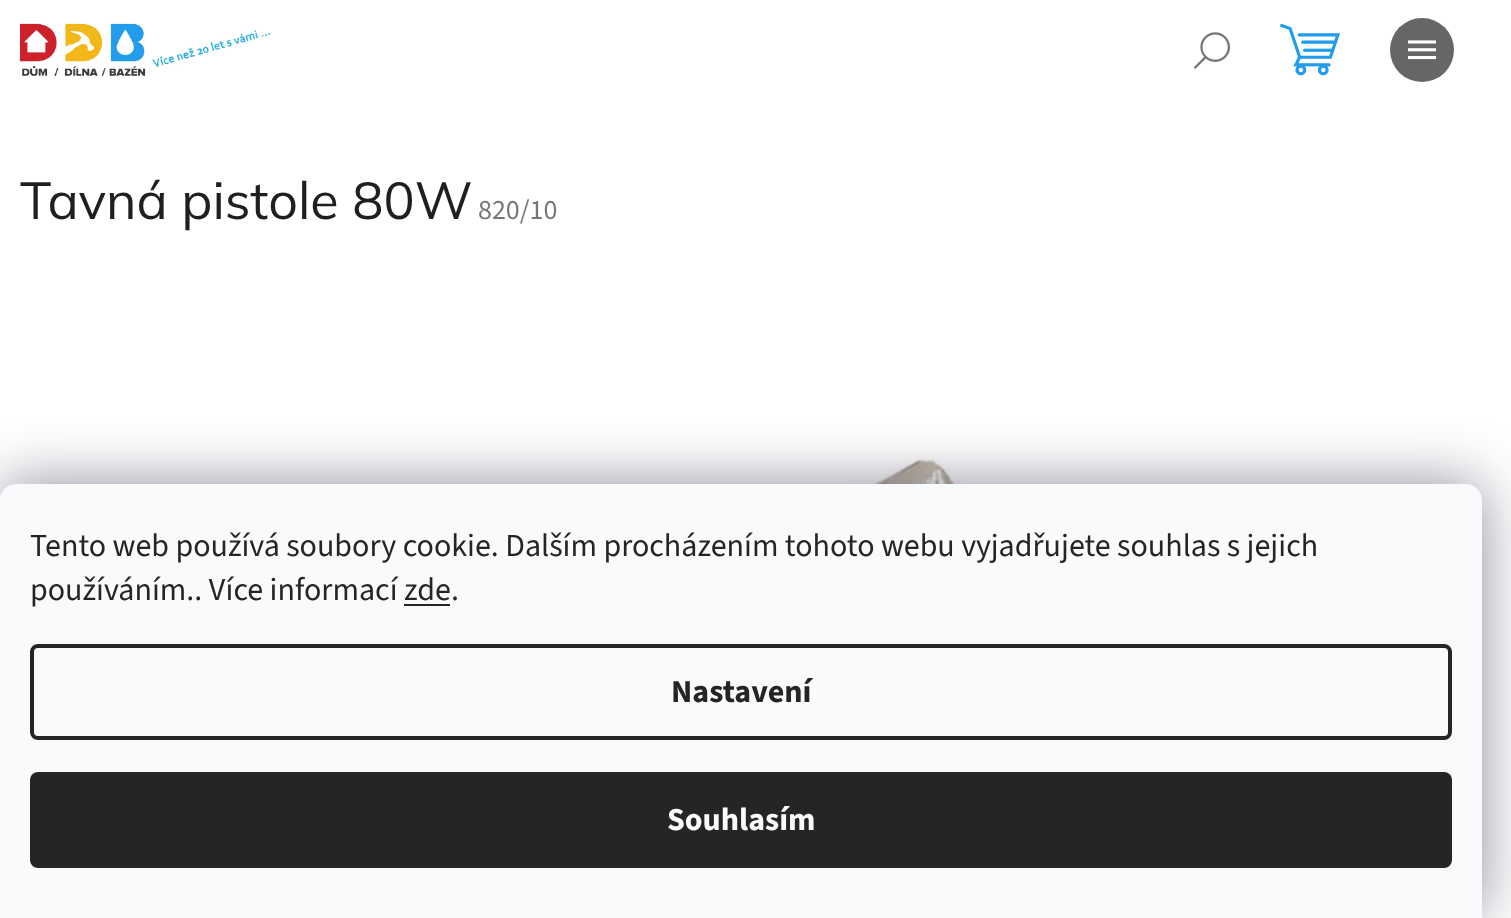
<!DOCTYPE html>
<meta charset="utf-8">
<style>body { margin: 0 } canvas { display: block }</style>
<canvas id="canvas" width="1511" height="918"></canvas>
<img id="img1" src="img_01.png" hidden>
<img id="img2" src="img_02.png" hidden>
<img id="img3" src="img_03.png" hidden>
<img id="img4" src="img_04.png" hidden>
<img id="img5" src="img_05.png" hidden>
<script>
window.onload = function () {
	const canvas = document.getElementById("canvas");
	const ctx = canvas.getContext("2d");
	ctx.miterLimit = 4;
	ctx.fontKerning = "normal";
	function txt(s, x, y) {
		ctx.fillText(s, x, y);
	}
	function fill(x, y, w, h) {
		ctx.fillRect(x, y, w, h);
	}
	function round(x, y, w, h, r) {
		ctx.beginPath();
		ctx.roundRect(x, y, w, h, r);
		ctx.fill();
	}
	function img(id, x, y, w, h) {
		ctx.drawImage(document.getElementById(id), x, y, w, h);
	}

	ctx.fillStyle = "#FFFFFF";
	fill(0, 0, 1511, 918);
	img("img1", 1194, 32, 36, 37);
	ctx.fillStyle = "#666666";
	ctx.beginPath();
	ctx.arc(1422, 50, 32, 0, Math.PI * 2);
	ctx.fill();
	img("img2", 1408, 40, 28, 20);
	img("img3", 20, 23, 250, 53);
	img("img4", 1280, 23, 60, 53);
	img("img5", 246, 457, 1004, 27);
	ctx.fillStyle = "rgba(27, 25, 57, 0.5)";
	ctx.filter = "blur(30px)";
	ctx.beginPath();
	ctx.roundRect(0, 484, 1482, 434, 16);
	ctx.fill();
	ctx.filter = "none";
	ctx.fillStyle = "#F8FAFB";
	ctx.beginPath();
	ctx.roundRect(0, 484, 1482, 434, [16, 16, 0, 0]);
	ctx.fill();
	ctx.fillStyle = "#252525";
	fill(404, 604, 46, 2);
	ctx.beginPath();
	ctx.roundRect(32, 646, 1418, 92, 6);
	ctx.strokeStyle = "#252525";
	ctx.lineWidth = 4;
	ctx.stroke();
	round(30, 772, 1422, 96, 8);
	ctx.font = "52px Mulish";
	ctx.fillStyle = "#1F1F1F";
	txt("Tavná pistole 80W", 20, 219);
	ctx.font = "28px 'Source Sans 3'";
	ctx.fillStyle = "#767676";
	txt("820/10", 478, 219);
	ctx.font = "32px 'Source Sans 3'";
	ctx.fillStyle = "#252525";
	txt("Tento web používá soubory cookie. Dalším procházením tohoto webu vyjadřujete souhlas s jejich", 30, 556);
	txt("používáním.. Více informací zde.", 30, 600);
	ctx.font = "bold 32px 'Source Sans 3'";
	txt("Nastavení", 671, 702);
	ctx.fillStyle = "#F8FAFB";
	txt("Souhlasím", 667, 830);
};
</script>
